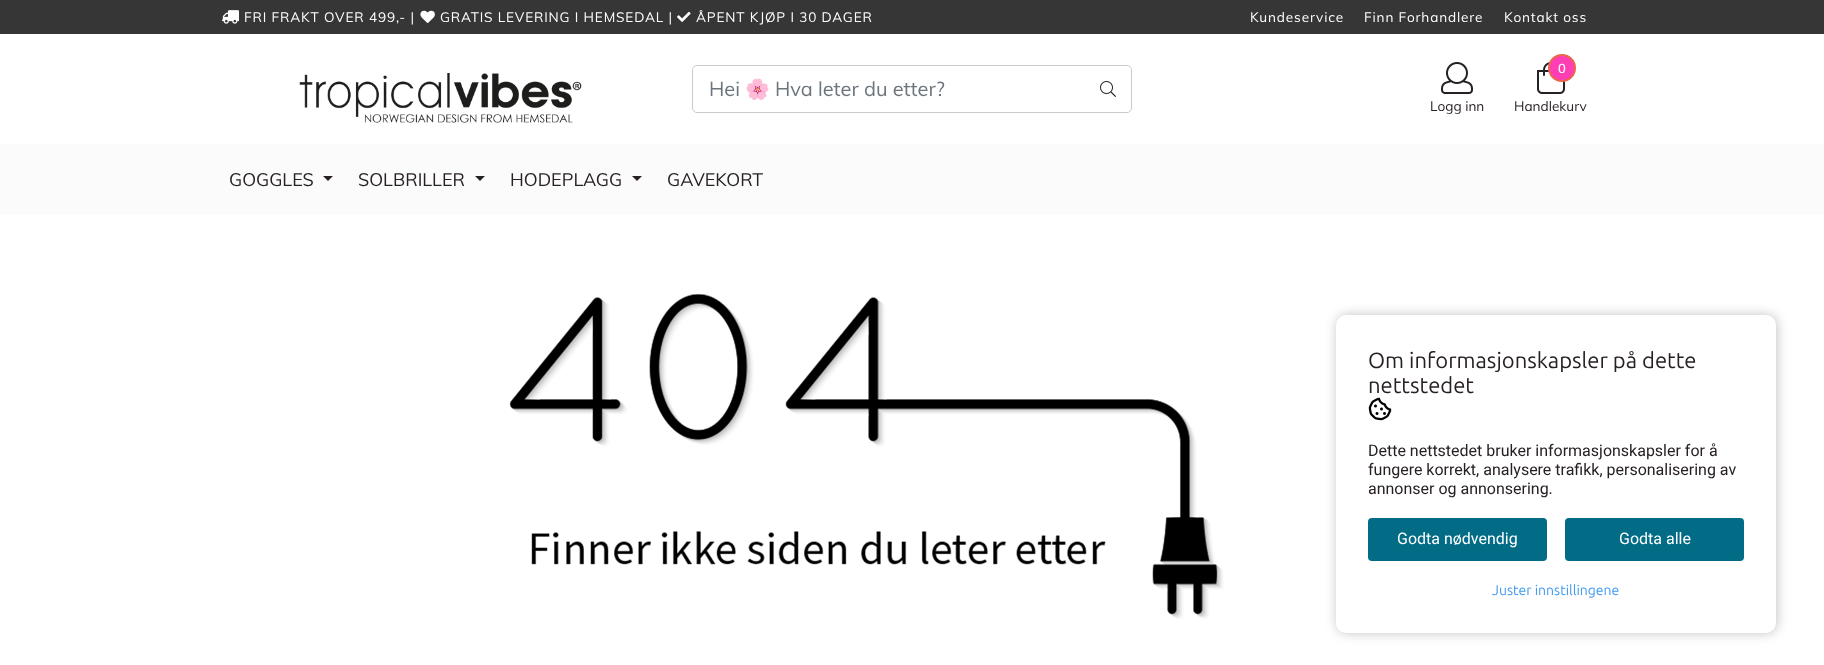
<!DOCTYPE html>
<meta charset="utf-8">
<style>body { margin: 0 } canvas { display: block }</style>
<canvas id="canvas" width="1824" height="665"></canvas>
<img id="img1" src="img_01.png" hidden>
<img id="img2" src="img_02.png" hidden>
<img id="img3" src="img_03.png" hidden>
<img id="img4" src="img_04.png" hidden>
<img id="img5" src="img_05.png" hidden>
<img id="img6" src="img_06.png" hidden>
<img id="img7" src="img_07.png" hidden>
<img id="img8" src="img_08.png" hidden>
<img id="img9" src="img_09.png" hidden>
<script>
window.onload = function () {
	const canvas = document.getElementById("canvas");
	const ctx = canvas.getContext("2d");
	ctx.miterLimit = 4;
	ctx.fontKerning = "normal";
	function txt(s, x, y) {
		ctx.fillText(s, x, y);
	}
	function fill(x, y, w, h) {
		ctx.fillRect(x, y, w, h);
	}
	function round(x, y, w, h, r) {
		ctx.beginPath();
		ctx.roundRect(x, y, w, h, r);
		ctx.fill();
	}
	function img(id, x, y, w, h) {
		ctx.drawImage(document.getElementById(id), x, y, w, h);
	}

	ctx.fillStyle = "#FFFFFF";
	fill(0, 0, 1824, 665);
	ctx.fillStyle = "#363636";
	fill(0, 0, 1824, 34);
	img("img1", 222, 10, 17, 14);
	img("img2", 420, 10, 15, 13);
	img("img3", 677, 11, 14, 11);
	img("img4", 299, 73, 283, 50);
	ctx.beginPath();
	ctx.roundRect(692.5, 65.5, 439, 47, 4.5);
	ctx.strokeStyle = "#CACACA";
	ctx.stroke();
	img("img5", 1100, 81, 16, 16);
	img("img6", 1441, 62, 32, 32);
	img("img7", 1537, 62, 28, 32);
	ctx.fillStyle = "#FF3EB5";
	ctx.beginPath();
	ctx.arc(1562, 68, 13, 0, Math.PI * 2);
	ctx.fill();
	ctx.strokeStyle = "#EC644B";
	ctx.lineWidth = 2;
	ctx.stroke();
	ctx.fillStyle = "#FBFBFB";
	fill(0, 144, 1824, 71);
	ctx.fillStyle = "#282123";
	ctx.beginPath();
	ctx.moveTo(323, 176);
	ctx.lineTo(333, 176);
	ctx.lineTo(328, 181);
	ctx.closePath();
	ctx.fill();
	ctx.beginPath();
	ctx.moveTo(475, 176);
	ctx.lineTo(485, 176);
	ctx.lineTo(480, 181);
	ctx.closePath();
	ctx.fill();
	ctx.beginPath();
	ctx.moveTo(632, 176);
	ctx.lineTo(642, 176);
	ctx.lineTo(637, 181);
	ctx.closePath();
	ctx.fill();
	img("img8", 509, 293, 715, 326);
	ctx.fillStyle = "rgba(0, 0, 0, 0.24)";
	ctx.filter = "blur(6px)";
	ctx.beginPath();
	ctx.roundRect(1337, 315, 440, 318, 10);
	ctx.fill();
	ctx.filter = "none";
	ctx.fillStyle = "#FFFFFF";
	round(1336, 315, 440, 318, 10);
	img("img9", 1368, 397, 24, 24);
	ctx.fillStyle = "#026B85";
	round(1368, 518, 179, 43, 4);
	round(1565, 518, 179, 43, 4);
	ctx.letterSpacing = "0.85px";
	ctx.font = "13.6px Muli";
	ctx.fillStyle = "#FFFFFF";
	txt("FRI FRAKT OVER 499,- |", 244, 22);
	txt("GRATIS LEVERING I HEMSEDAL |", 440, 22);
	txt("ÅPENT KJØP I 30 DAGER", 696, 22);
	txt("Kundeservice", 1250, 22);
	txt("Finn Forhandlere", 1364, 22);
	txt("Kontakt oss", 1504, 22);
	ctx.letterSpacing = "0px";
	ctx.font = "20px Muli";
	ctx.fillStyle = "#6C757D";
	txt("Hei", 709, 96);
	ctx.font = "20px Noto Color Emoji";
	txt("🌸", 745, 96);
	ctx.font = "20px Muli";
	txt("Hva leter du etter?", 775, 96);
	ctx.font = "13.6px Muli";
	ctx.fillStyle = "#282123";
	txt("Logg inn", 1430, 111);
	ctx.font = "600 13px Muli";
	ctx.fillStyle = "#FFFFFF";
	txt("0", 1558, 73);
	ctx.font = "13.6px Muli";
	ctx.fillStyle = "#282123";
	txt("Handlekurv", 1514, 111);
	ctx.font = "18px Muli";
	txt("GOGGLES", 229, 186);
	txt("SOLBRILLER", 358, 186);
	txt("HODEPLAGG", 510, 186);
	txt("GAVEKORT", 667, 186);
	ctx.font = "22px Ubuntu";
	txt("Om informasjonskapsler på dette", 1368, 368);
	txt("nettstedet", 1368, 393);
	ctx.font = "16px Roboto";
	txt("Dette nettstedet bruker informasjonskapsler for å", 1368, 456);
	txt("fungere korrekt, analysere trafikk, personalisering av", 1368, 475);
	txt("annonser og annonsering.", 1368, 494);
	ctx.fillStyle = "#FFFFFF";
	txt("Godta nødvendig", 1397, 544);
	txt("Godta alle", 1619, 544);
	ctx.font = "14px Ubuntu";
	ctx.fillStyle = "#409AEF";
	txt("Juster innstillingene", 1492, 595);
};
</script>
